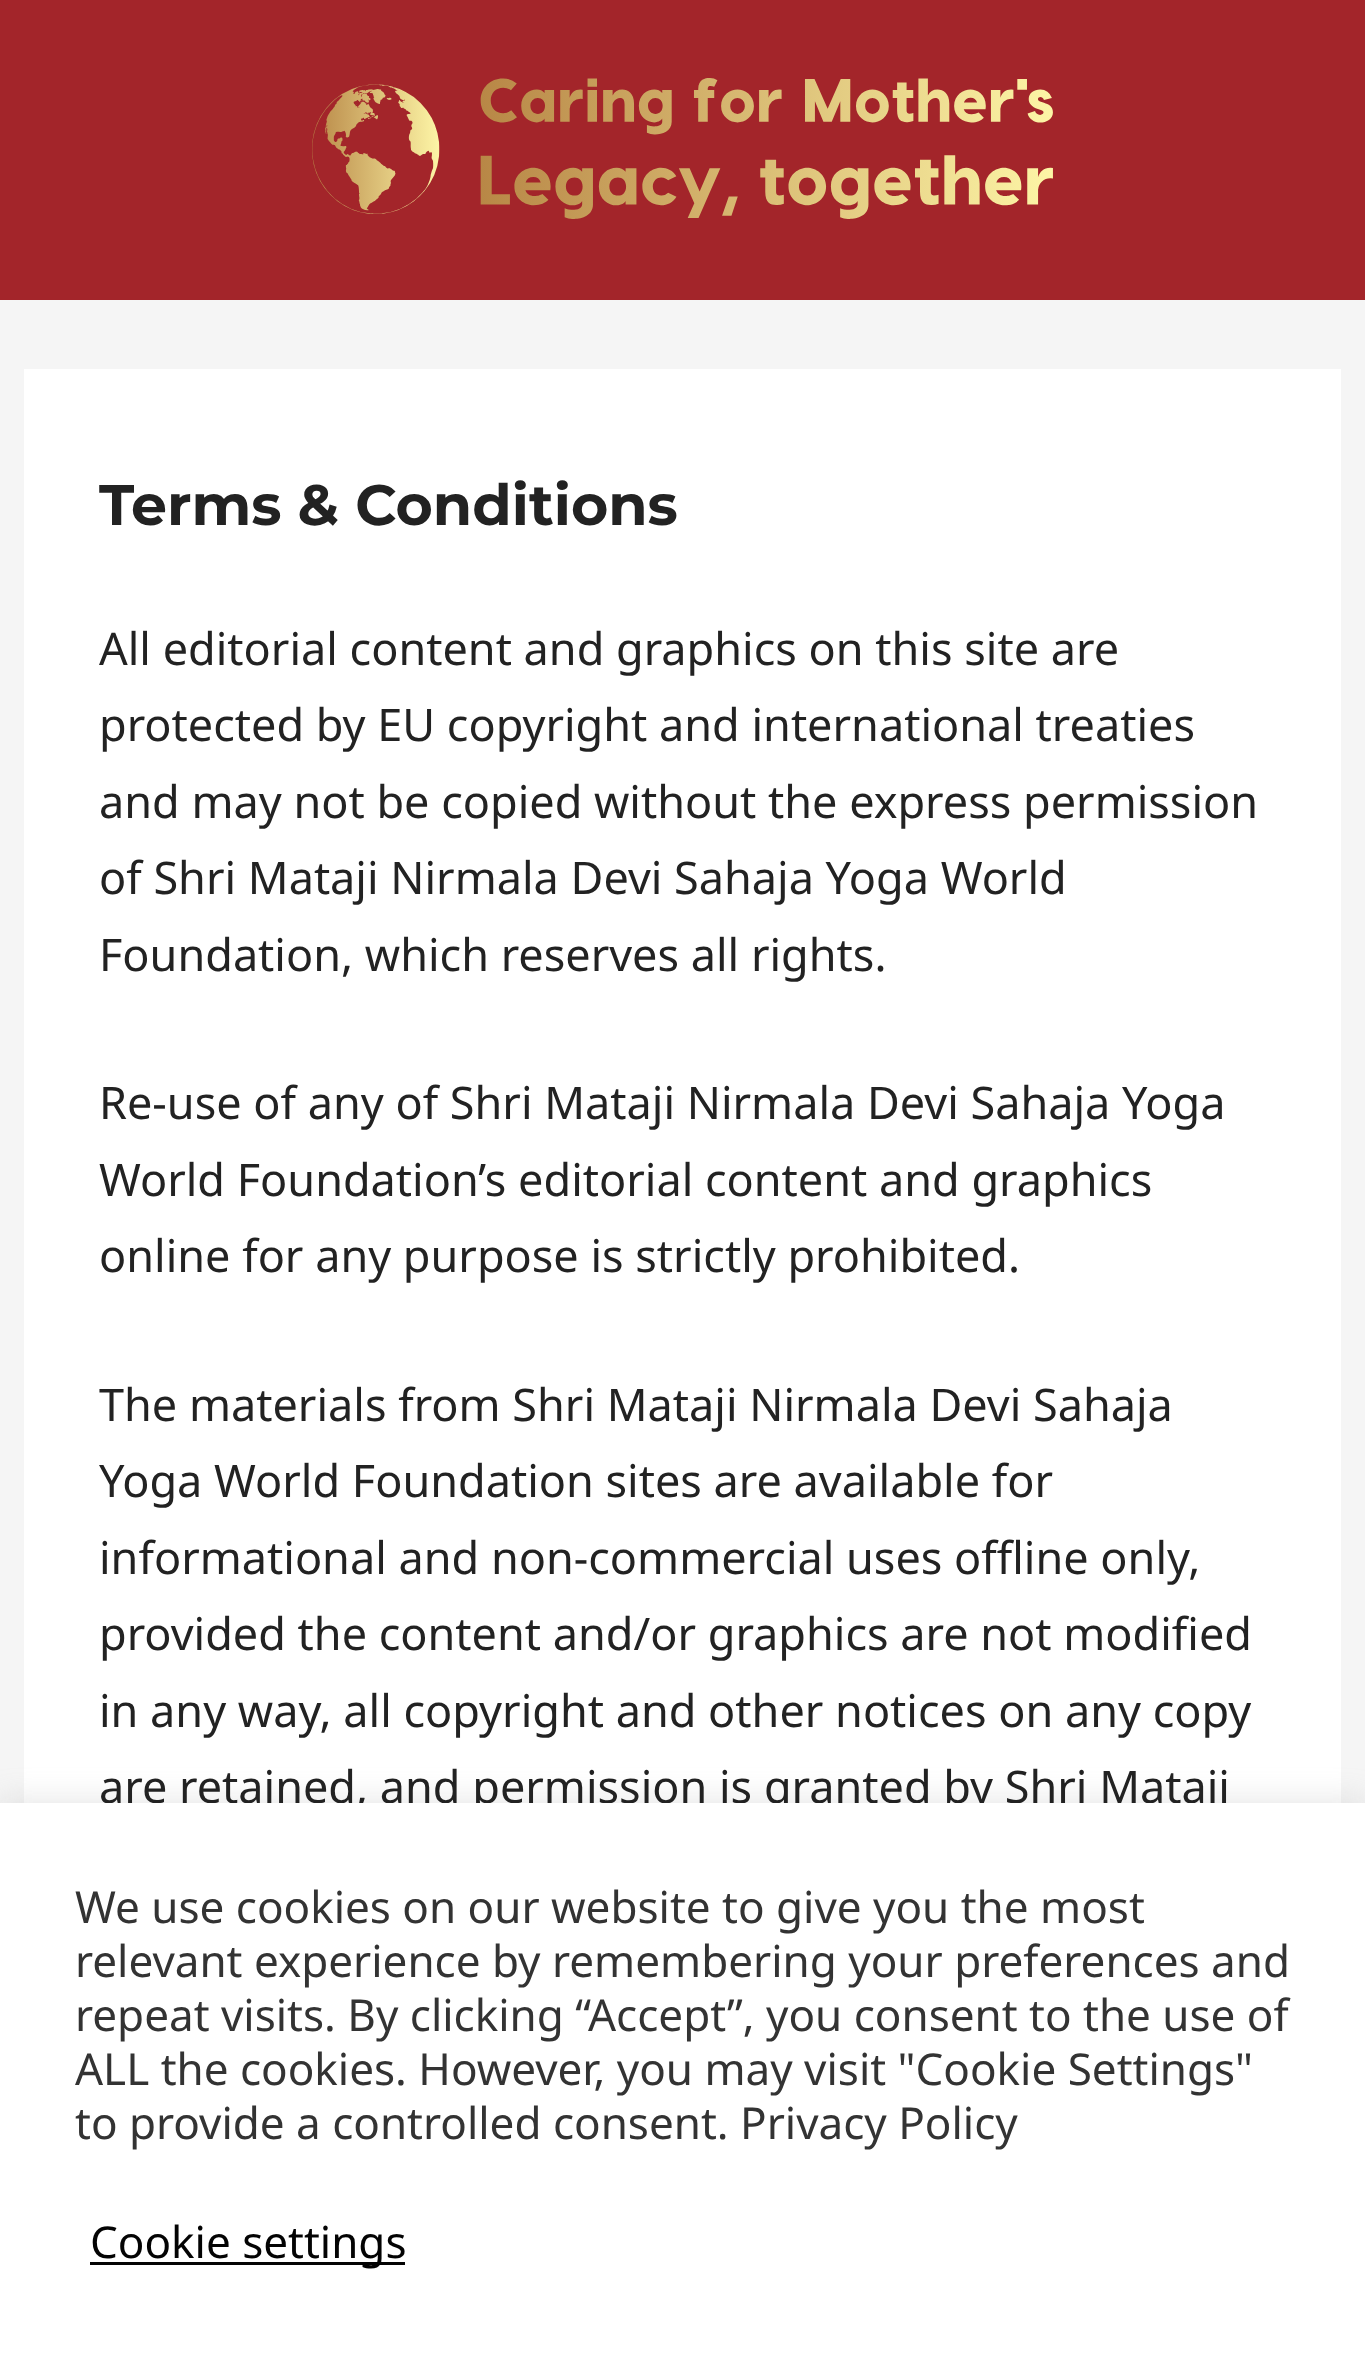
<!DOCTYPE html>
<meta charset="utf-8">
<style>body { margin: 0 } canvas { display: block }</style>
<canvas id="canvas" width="1365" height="2374"></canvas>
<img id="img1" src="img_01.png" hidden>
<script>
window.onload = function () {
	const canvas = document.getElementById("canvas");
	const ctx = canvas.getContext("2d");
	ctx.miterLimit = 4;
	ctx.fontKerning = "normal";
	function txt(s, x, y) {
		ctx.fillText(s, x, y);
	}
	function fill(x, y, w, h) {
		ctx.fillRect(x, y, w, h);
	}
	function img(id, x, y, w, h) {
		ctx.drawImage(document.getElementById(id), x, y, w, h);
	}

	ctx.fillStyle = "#F5F5F5";
	fill(0, 0, 1365, 2374);
	ctx.fillStyle = "#A3252A";
	fill(0, 0, 1365, 300);
	img("img1", 312, 78, 741, 141);
	ctx.fillStyle = "#FFFFFF";
	fill(24, 369, 1317, 1434);
	ctx.fillStyle = "rgba(172, 171, 171, 0.3)";
	ctx.filter = "blur(15px)";
	ctx.beginPath();
	ctx.rect(0, 1800, 1365, 573);
	ctx.fill();
	ctx.filter = "none";
	ctx.font = "100 57px Montserrat";
	ctx.fillStyle = "#222222";
	txt("Terms & Conditions", 99, 525);
	ctx.font = "45px Noto Sans";
	txt("All editorial content and graphics on this site are", 99, 665);
	txt("protected by EU copyright and international treaties", 99, 741);
	txt("and may not be copied without the express permission", 99, 818);
	txt("of Shri Mataji Nirmala Devi Sahaja Yoga World", 99, 894);
	txt("Foundation, which reserves all rights.", 99, 971);
	txt("Re-use of any of Shri Mataji Nirmala Devi Sahaja Yoga", 99, 1119);
	txt("World Foundation’s editorial content and graphics", 99, 1196);
	txt("online for any purpose is strictly prohibited.", 99, 1272);
	txt("The materials from Shri Mataji Nirmala Devi Sahaja", 99, 1421);
	txt("Yoga World Foundation sites are available for", 99, 1497);
	txt("informational and non-commercial uses offline only,", 99, 1574);
	txt("provided the content and/or graphics are not modified", 99, 1650);
	txt("in any way, all copyright and other notices on any copy", 99, 1727);
	txt("are retained, and permission is granted by Shri Mataji", 99, 1803);
	ctx.fillStyle = "#FFFFFF";
	fill(0, 1803, 1365, 571);
	ctx.font = "44px Noto Sans";
	ctx.fillStyle = "#333333";
	txt("We use cookies on our website to give you the most", 75, 1923);
	txt("relevant experience by remembering your preferences and", 75, 1977);
	txt("repeat visits. By clicking “Accept”, you consent to the use of", 75, 2031);
	txt("ALL the cookies. However, you may visit \"Cookie Settings\"", 75, 2085);
	txt("to provide a controlled consent. Privacy Policy", 75, 2139);
	ctx.fillStyle = "#030303";
	fill(90, 2262, 315, 3);
	txt("Cookie settings", 90, 2258);
};
</script>
